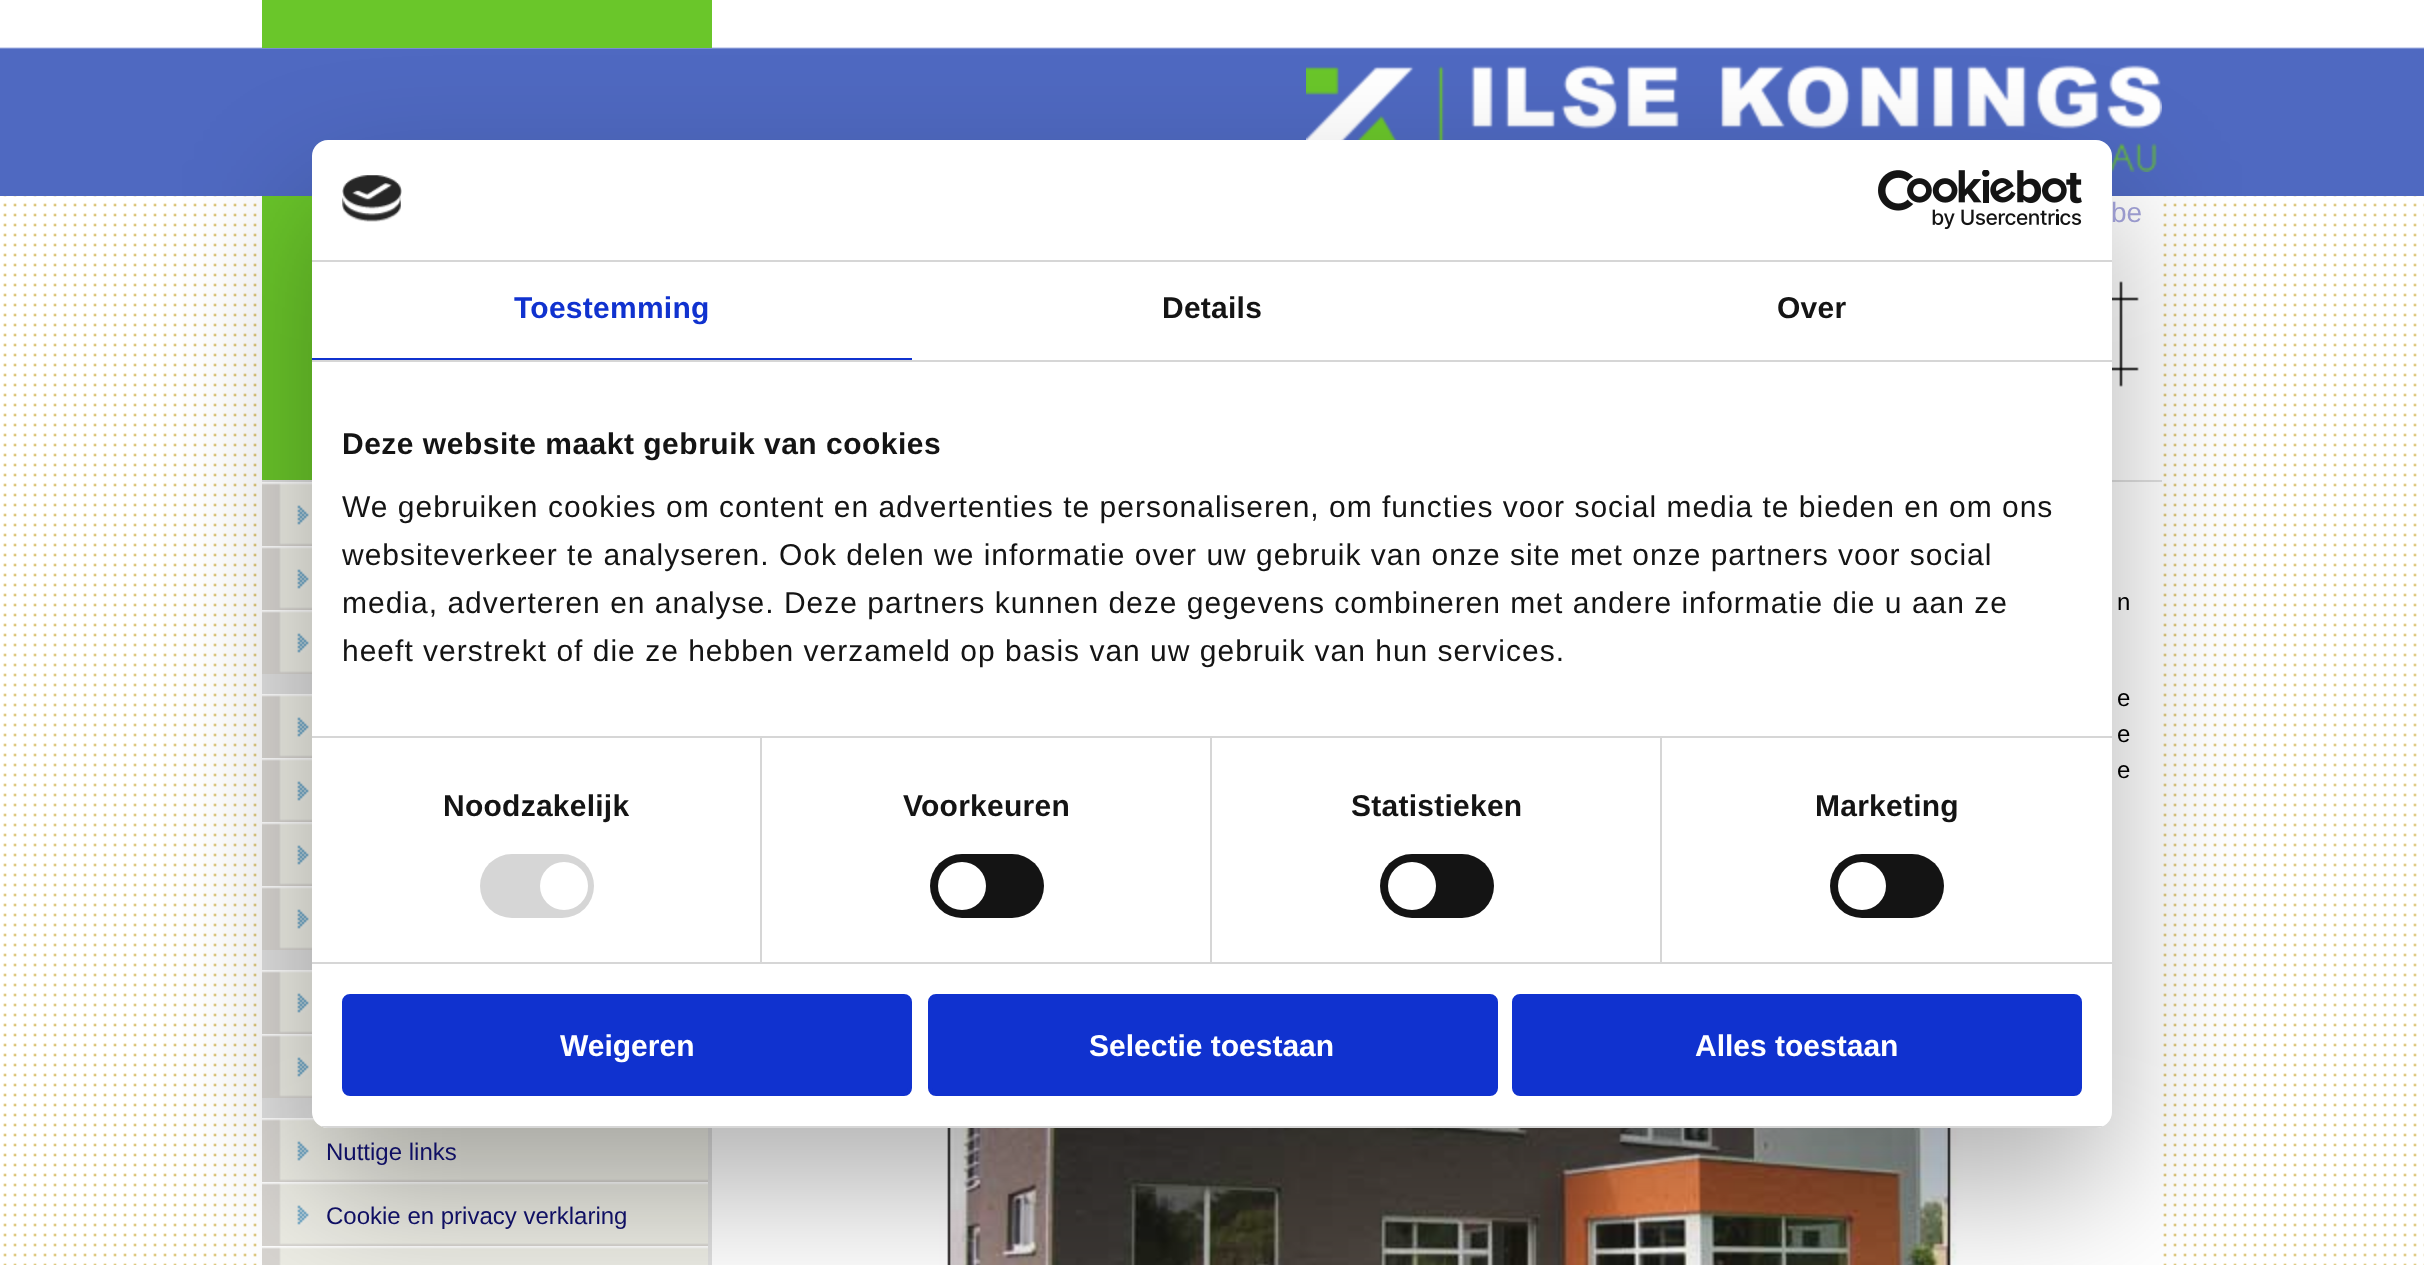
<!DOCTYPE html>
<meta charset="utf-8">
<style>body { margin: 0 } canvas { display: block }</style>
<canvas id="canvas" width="2424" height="1265"></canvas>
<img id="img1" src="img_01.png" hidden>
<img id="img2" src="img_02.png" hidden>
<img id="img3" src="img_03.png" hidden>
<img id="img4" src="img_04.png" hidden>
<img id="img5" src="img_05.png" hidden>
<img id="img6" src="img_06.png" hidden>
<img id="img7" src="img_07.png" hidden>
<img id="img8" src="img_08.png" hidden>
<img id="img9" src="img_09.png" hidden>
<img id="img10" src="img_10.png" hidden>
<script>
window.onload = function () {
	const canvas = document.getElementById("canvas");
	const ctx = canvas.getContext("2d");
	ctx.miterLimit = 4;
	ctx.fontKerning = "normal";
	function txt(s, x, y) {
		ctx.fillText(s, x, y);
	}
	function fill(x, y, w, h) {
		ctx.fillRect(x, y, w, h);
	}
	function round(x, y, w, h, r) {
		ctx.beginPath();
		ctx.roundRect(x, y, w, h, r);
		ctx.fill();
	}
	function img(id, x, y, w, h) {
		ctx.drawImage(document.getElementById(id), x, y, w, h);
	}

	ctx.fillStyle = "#FFFFFF";
	fill(0, 0, 2424, 1265);
	img("img1", 3, 196, 2421, 1069);
	img("img2", 0, 47, 2424, 149);
	ctx.fillStyle = "#6AC62A";
	fill(262, 0, 450, 48);
	img("img3", 1306, 65, 856, 107);
	ctx.fillStyle = "#FFFFFF";
	fill(2143, 196, 14, 281);
	img("img4", 262, 196, 1877, 284);
	ctx.fillStyle = "#E0E0E0";
	fill(262, 480, 1900, 2);
	fill(262, 674, 450, 591);
	ctx.fillStyle = "#FFFFFF";
	fill(713, 483, 1444, 782);
	img("img5", 932, 1128, 1032, 137);
	img("img6", 262, 482, 50, 64);
	img("img6", 262, 546, 50, 64);
	img("img6", 262, 610, 50, 64);
	img("img6", 262, 694, 50, 64);
	img("img6", 262, 758, 50, 64);
	img("img6", 262, 822, 50, 64);
	img("img6", 262, 886, 50, 64);
	img("img6", 262, 970, 50, 64);
	img("img6", 262, 1034, 50, 64);
	img("img7", 262, 1118, 446, 64);
	img("img7", 262, 1182, 446, 64);
	img("img8", 262, 1246, 446, 19);
	ctx.fillStyle = "rgba(0, 0, 0, 0.3)";
	ctx.filter = "blur(68px)";
	ctx.beginPath();
	ctx.roundRect(312, 204, 1800, 988, 16);
	ctx.fill();
	ctx.filter = "none";
	ctx.fillStyle = "#FFFFFF";
	round(312, 140, 1800, 988, 16);
	ctx.fillStyle = "#D6D6D6";
	fill(312, 260, 1800, 2);
	img("img9", 342, 175, 60, 47);
	img("img10", 1878, 170, 204, 60);
	fill(312, 360, 1800, 2);
	ctx.fillStyle = "#1032CF";
	fill(312, 358, 600, 2);
	ctx.fillStyle = "#D6D6D6";
	fill(312, 736, 1800, 2);
	fill(312, 962, 1800, 2);
	fill(760, 738, 2, 224);
	round(480, 854, 114, 64, 32);
	ctx.fillStyle = "#FFFFFF";
	ctx.beginPath();
	ctx.arc(564, 886, 24, 0, Math.PI * 2);
	ctx.fill();
	ctx.fillStyle = "#D6D6D6";
	fill(1210, 738, 2, 224);
	ctx.fillStyle = "#141414";
	round(930, 854, 114, 64, 32);
	ctx.fillStyle = "#FFFFFF";
	ctx.beginPath();
	ctx.arc(962, 886, 24, 0, Math.PI * 2);
	ctx.fill();
	ctx.fillStyle = "#D6D6D6";
	fill(1660, 738, 2, 224);
	ctx.fillStyle = "#141414";
	round(1380, 854, 114, 64, 32);
	ctx.fillStyle = "#FFFFFF";
	ctx.beginPath();
	ctx.arc(1412, 886, 24, 0, Math.PI * 2);
	ctx.fill();
	ctx.fillStyle = "#141414";
	round(1830, 854, 114, 64, 32);
	ctx.fillStyle = "#FFFFFF";
	ctx.beginPath();
	ctx.arc(1862, 886, 24, 0, Math.PI * 2);
	ctx.fill();
	ctx.save();
	ctx.beginPath();
	ctx.roundRect(312, 140, 1800, 988, 16);
	ctx.clip();
	ctx.fillStyle = "#D6D6D6";
	fill(312, 1126, 1800, 2);
	ctx.restore();
	ctx.fillStyle = "#1032CF";
	ctx.beginPath();
	ctx.roundRect(344, 996, 566, 98, 6);
	ctx.fill();
	ctx.strokeStyle = "#1032CF";
	ctx.lineWidth = 4;
	ctx.stroke();
	ctx.beginPath();
	ctx.roundRect(930, 996, 566, 98, 6);
	ctx.fill();
	ctx.stroke();
	ctx.beginPath();
	ctx.roundRect(1514, 996, 566, 98, 6);
	ctx.fill();
	ctx.stroke();
	ctx.font = "28px Liberation Sans";
	ctx.fillStyle = "#9999CC";
	txt("be", 2111, 222);
	ctx.wordSpacing = "2px";
	ctx.font = "24px Liberation Sans";
	ctx.fillStyle = "#000000";
	txt("n", 2117, 610);
	ctx.wordSpacing = "1px";
	txt("e", 2117, 706);
	ctx.wordSpacing = "3px";
	txt("e", 2117, 742);
	ctx.wordSpacing = "5px";
	txt("e", 2117, 778);
	ctx.wordSpacing = "0px";
	ctx.fillStyle = "#0F0F63";
	txt("Nuttige links", 326, 1160);
	txt("Cookie en privacy verklaring", 326, 1224);
	ctx.letterSpacing = "0.25px";
	ctx.font = "bold 30px Liberation Sans";
	ctx.fillStyle = "#1032CF";
	txt("Toestemming", 514, 318);
	ctx.fillStyle = "#141414";
	txt("Details", 1162, 318);
	txt("Over", 1777, 318);
	ctx.letterSpacing = "0.5px";
	txt("Deze website maakt gebruik van cookies", 342, 454);
	ctx.letterSpacing = "1px";
	ctx.font = "30px Liberation Sans";
	txt("We gebruiken cookies om content en advertenties te personaliseren, om functies voor social media te bieden en om ons", 342, 517);
	txt("websiteverkeer te analyseren. Ook delen we informatie over uw gebruik van onze site met onze partners voor social", 342, 565);
	txt("media, adverteren en analyse. Deze partners kunnen deze gegevens combineren met andere informatie die u aan ze", 342, 613);
	txt("heeft verstrekt of die ze hebben verzameld op basis van uw gebruik van hun services.", 342, 661);
	ctx.letterSpacing = "0.25px";
	ctx.font = "bold 30px Liberation Sans";
	txt("Noodzakelijk", 443, 816);
	txt("Voorkeuren", 903, 816);
	txt("Statistieken", 1351, 816);
	txt("Marketing", 1815, 816);
	ctx.letterSpacing = "0px";
	ctx.fillStyle = "#FFFFFF";
	txt("Weigeren", 560, 1056);
	txt("Selectie toestaan", 1089, 1056);
	txt("Alles toestaan", 1695, 1056);
};
</script>
